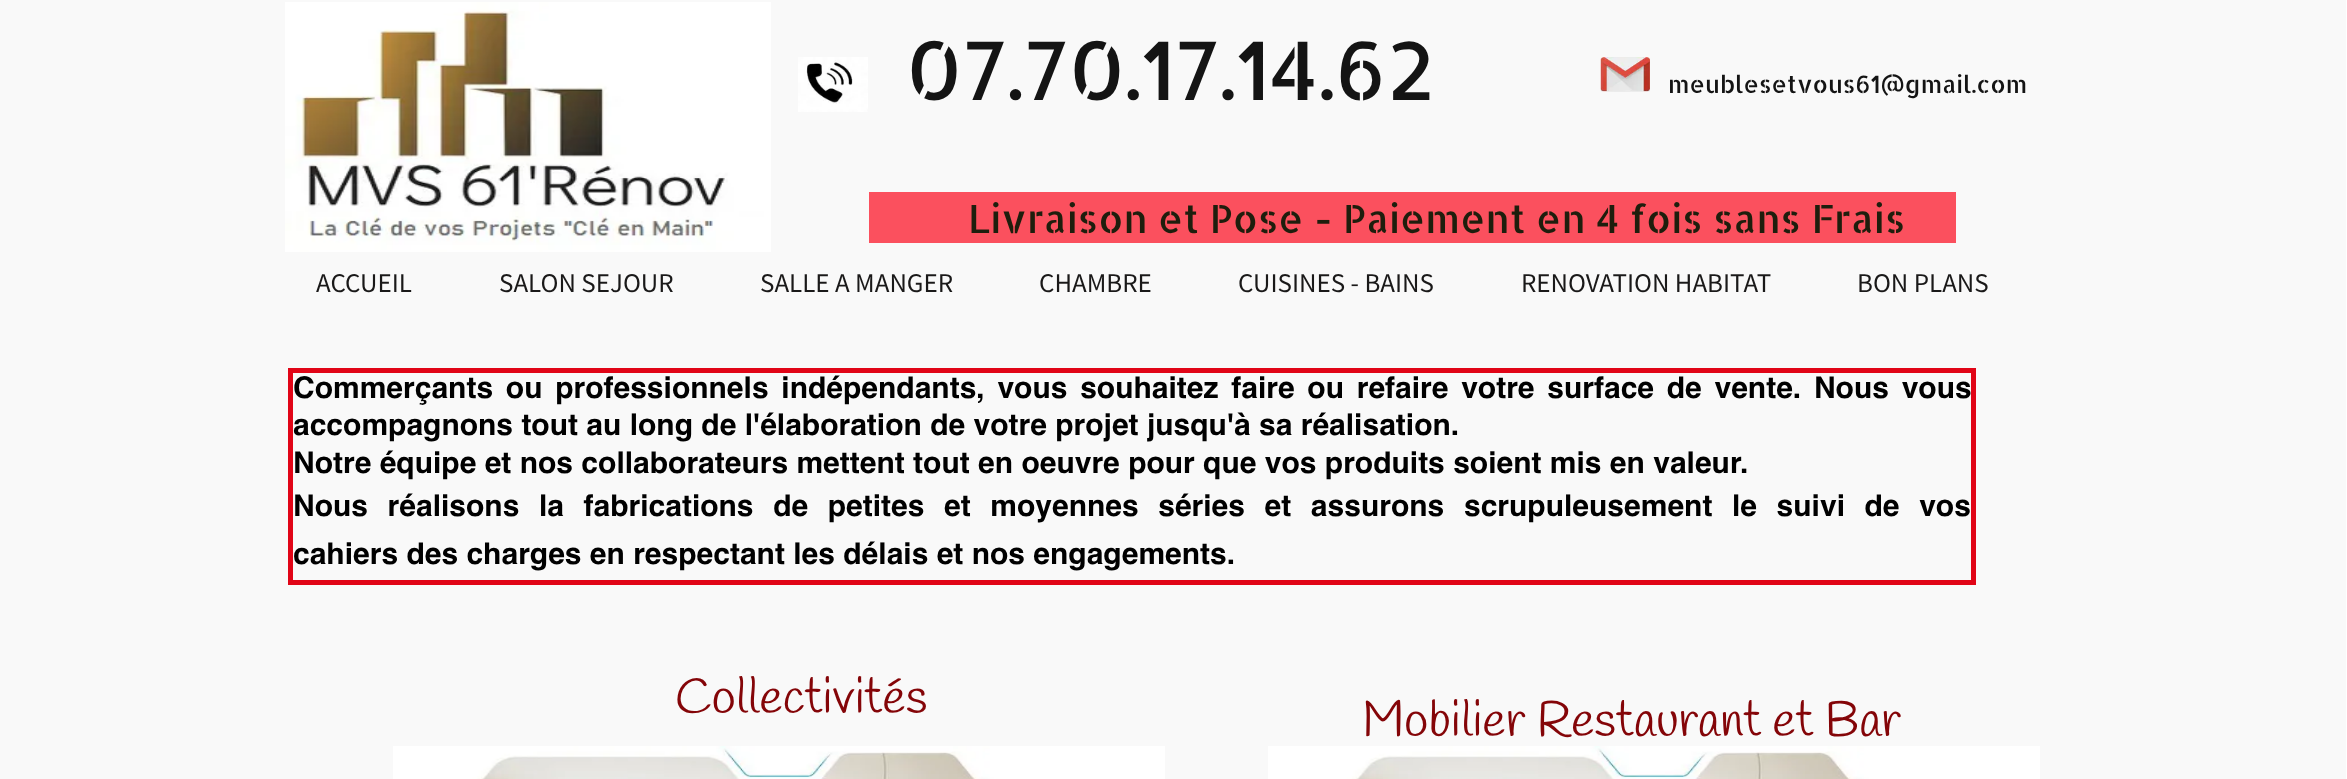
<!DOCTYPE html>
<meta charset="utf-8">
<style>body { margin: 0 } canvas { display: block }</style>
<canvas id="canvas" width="2347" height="779"></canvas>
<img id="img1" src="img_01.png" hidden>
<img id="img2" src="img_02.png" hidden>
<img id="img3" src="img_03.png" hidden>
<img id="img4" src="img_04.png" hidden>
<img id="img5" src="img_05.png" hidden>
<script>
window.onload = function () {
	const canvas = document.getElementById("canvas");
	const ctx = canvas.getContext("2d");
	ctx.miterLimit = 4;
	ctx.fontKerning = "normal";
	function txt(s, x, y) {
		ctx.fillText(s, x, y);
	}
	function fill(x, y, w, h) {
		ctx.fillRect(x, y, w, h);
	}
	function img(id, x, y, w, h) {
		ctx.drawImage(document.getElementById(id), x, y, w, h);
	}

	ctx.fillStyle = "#FFFFFF";
	fill(0, 0, 2347, 779);
	ctx.fillStyle = "#F9F9F9";
	fill(0, 0, 2346, 779);
	img("img1", 285, 2, 486, 250);
	img("img2", 798, 57, 70, 55);
	img("img3", 1600, 57, 50, 35);
	ctx.fillStyle = "#FB505E";
	fill(869, 192, 1087, 51);
	ctx.strokeStyle = "#E10517";
	ctx.lineWidth = 5;
	ctx.strokeRect(290.5, 370.5, 1683, 212);
	img("img4", 393, 746, 772, 33);
	img("img5", 1268, 746, 772, 33);
	ctx.font = "81px Allerta Stencil";
	ctx.fillStyle = "#141414";
	txt("07.70.17.14.62", 906, 100);
	ctx.font = "24px Allerta Stencil";
	txt("meublesetvous61@gmail.com", 1668, 93);
	ctx.font = "39px Allerta Stencil";
	ctx.fillStyle = "#1E1E0D";
	txt("Livraison et Pose - Paiement en 4 fois sans Frais", 968, 233);
	ctx.font = "27px Source Sans Pro";
	ctx.fillStyle = "#1A1919";
	txt("ACCUEIL", 316, 292);
	txt("SALON SEJOUR", 499, 292);
	txt("SALLE A MANGER", 760, 292);
	txt("CHAMBRE", 1039, 292);
	txt("CUISINES - BAINS", 1238, 292);
	txt("RENOVATION HABITAT", 1521, 292);
	txt("BON PLANS", 1857, 292);
	ctx.wordSpacing = "4.4px";
	ctx.font = "bold 30px Helvetica";
	ctx.fillStyle = "#000000";
	txt("Commerçants ou professionnels indépendants, vous souhaitez faire ou refaire votre surface de vente. Nous vous", 293, 398);
	ctx.wordSpacing = "0px";
	txt("accompagnons tout au long de l'élaboration de votre projet jusqu'à sa réalisation.", 293, 435);
	txt("Notre équipe et nos collaborateurs mettent tout en oeuvre pour que vos produits soient mis en valeur.", 293, 473);
	ctx.wordSpacing = "11.25px";
	txt("Nous réalisons la fabrications de petites et moyennes séries et assurons", 293, 516);
	txt("scrupuleusement le suivi de vos", 1464, 516);
	ctx.wordSpacing = "0px";
	txt("cahiers des charges en respectant les délais et nos engagements.", 293, 564);
	ctx.font = "49.5px Handlee";
	ctx.fillStyle = "#840508";
	txt("Collectivités", 675, 713);
	txt("Mobilier Restaurant et Bar", 1362, 736);
};
</script>
